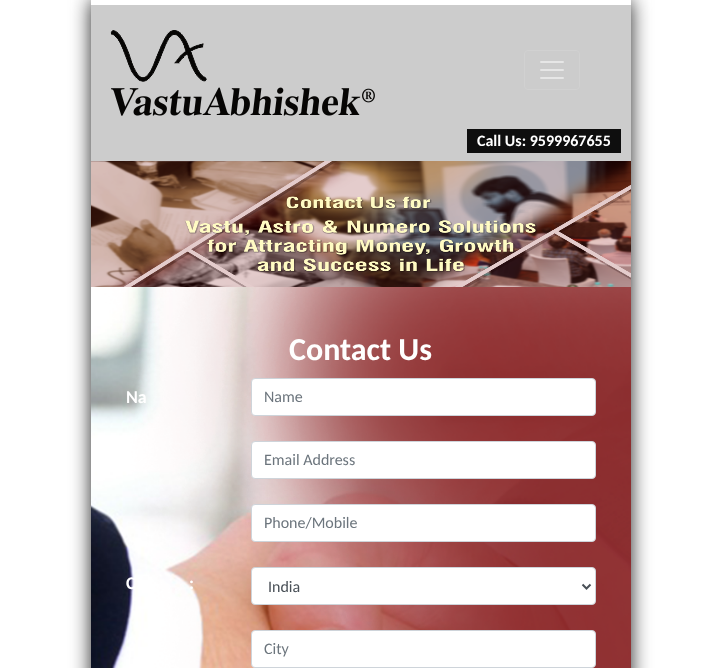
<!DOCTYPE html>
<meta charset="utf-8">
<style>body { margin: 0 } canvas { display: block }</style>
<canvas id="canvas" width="721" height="668"></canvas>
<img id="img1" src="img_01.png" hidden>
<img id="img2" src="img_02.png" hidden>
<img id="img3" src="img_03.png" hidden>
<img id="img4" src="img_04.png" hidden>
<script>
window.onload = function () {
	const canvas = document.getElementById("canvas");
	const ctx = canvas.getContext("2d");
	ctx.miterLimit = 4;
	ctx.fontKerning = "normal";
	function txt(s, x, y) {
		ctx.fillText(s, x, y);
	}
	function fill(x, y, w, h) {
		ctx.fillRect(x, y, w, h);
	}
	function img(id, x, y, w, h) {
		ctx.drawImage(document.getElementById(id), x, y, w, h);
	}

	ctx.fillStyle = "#FFFFFF";
	fill(0, 0, 721, 668);
	ctx.fillStyle = "#222222";
	ctx.filter = "blur(10px)";
	ctx.beginPath();
	ctx.rect(91, 0, 540, 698);
	ctx.fill();
	ctx.filter = "none";
	ctx.fillStyle = "#CCCCCC";
	fill(91, 5, 540, 156);
	ctx.fillStyle = "#FFFFFF";
	fill(91, 0, 540, 5);
	img("img1", 110, 30, 265, 86);
	ctx.beginPath();
	ctx.roundRect(524.5, 50.5, 55, 39, 3.5);
	ctx.strokeStyle = "#D1D1D1";
	ctx.stroke();
	img("img2", 540, 61, 24, 18);
	ctx.fillStyle = "#0E0E0E";
	fill(467, 129, 154, 24);
	img("img3", 91, 161, 540, 126);
	img("img4", 91, 287, 540, 381);
	ctx.fillStyle = "#FFFFFF";
	ctx.beginPath();
	ctx.roundRect(251.5, 378.5, 344, 37, 3.5);
	ctx.fill();
	ctx.strokeStyle = "#CED4DA";
	ctx.stroke();
	ctx.beginPath();
	ctx.roundRect(251.5, 441.5, 344, 37, 3.5);
	ctx.fill();
	ctx.stroke();
	ctx.beginPath();
	ctx.roundRect(251.5, 504.5, 344, 37, 3.5);
	ctx.fill();
	ctx.stroke();
	ctx.beginPath();
	ctx.roundRect(251.5, 567.5, 344, 37, 3.5);
	ctx.fill();
	ctx.stroke();
	ctx.beginPath();
	ctx.moveTo(582.5, 584.5);
	ctx.lineTo(586.5, 588.5);
	ctx.lineTo(590.5, 584.5);
	ctx.strokeStyle = "#495057";
	ctx.lineWidth = 2;
	ctx.stroke();
	ctx.beginPath();
	ctx.roundRect(251.5, 630.5, 344, 37, 3.5);
	ctx.fill();
	ctx.strokeStyle = "#CED4DA";
	ctx.lineWidth = 1;
	ctx.stroke();
	ctx.font = "bold 16px Carlito";
	txt("Call Us: 9599967655", 477, 146);
	ctx.font = "bold 32px Carlito";
	txt("Contact Us", 289, 360);
	ctx.font = "bold 18px Carlito";
	txt("Na", 126, 403);
	txt("C", 126, 589);
	txt(":", 189, 589);
	ctx.font = "16px Carlito";
	ctx.fillStyle = "#6C757D";
	txt("Name", 264, 402);
	txt("Email Address", 264, 465);
	txt("Phone/Mobile", 264, 528);
	ctx.fillStyle = "#495057";
	txt("India", 268, 592);
	ctx.fillStyle = "#6C757D";
	txt("City", 264, 654);
};
</script>
